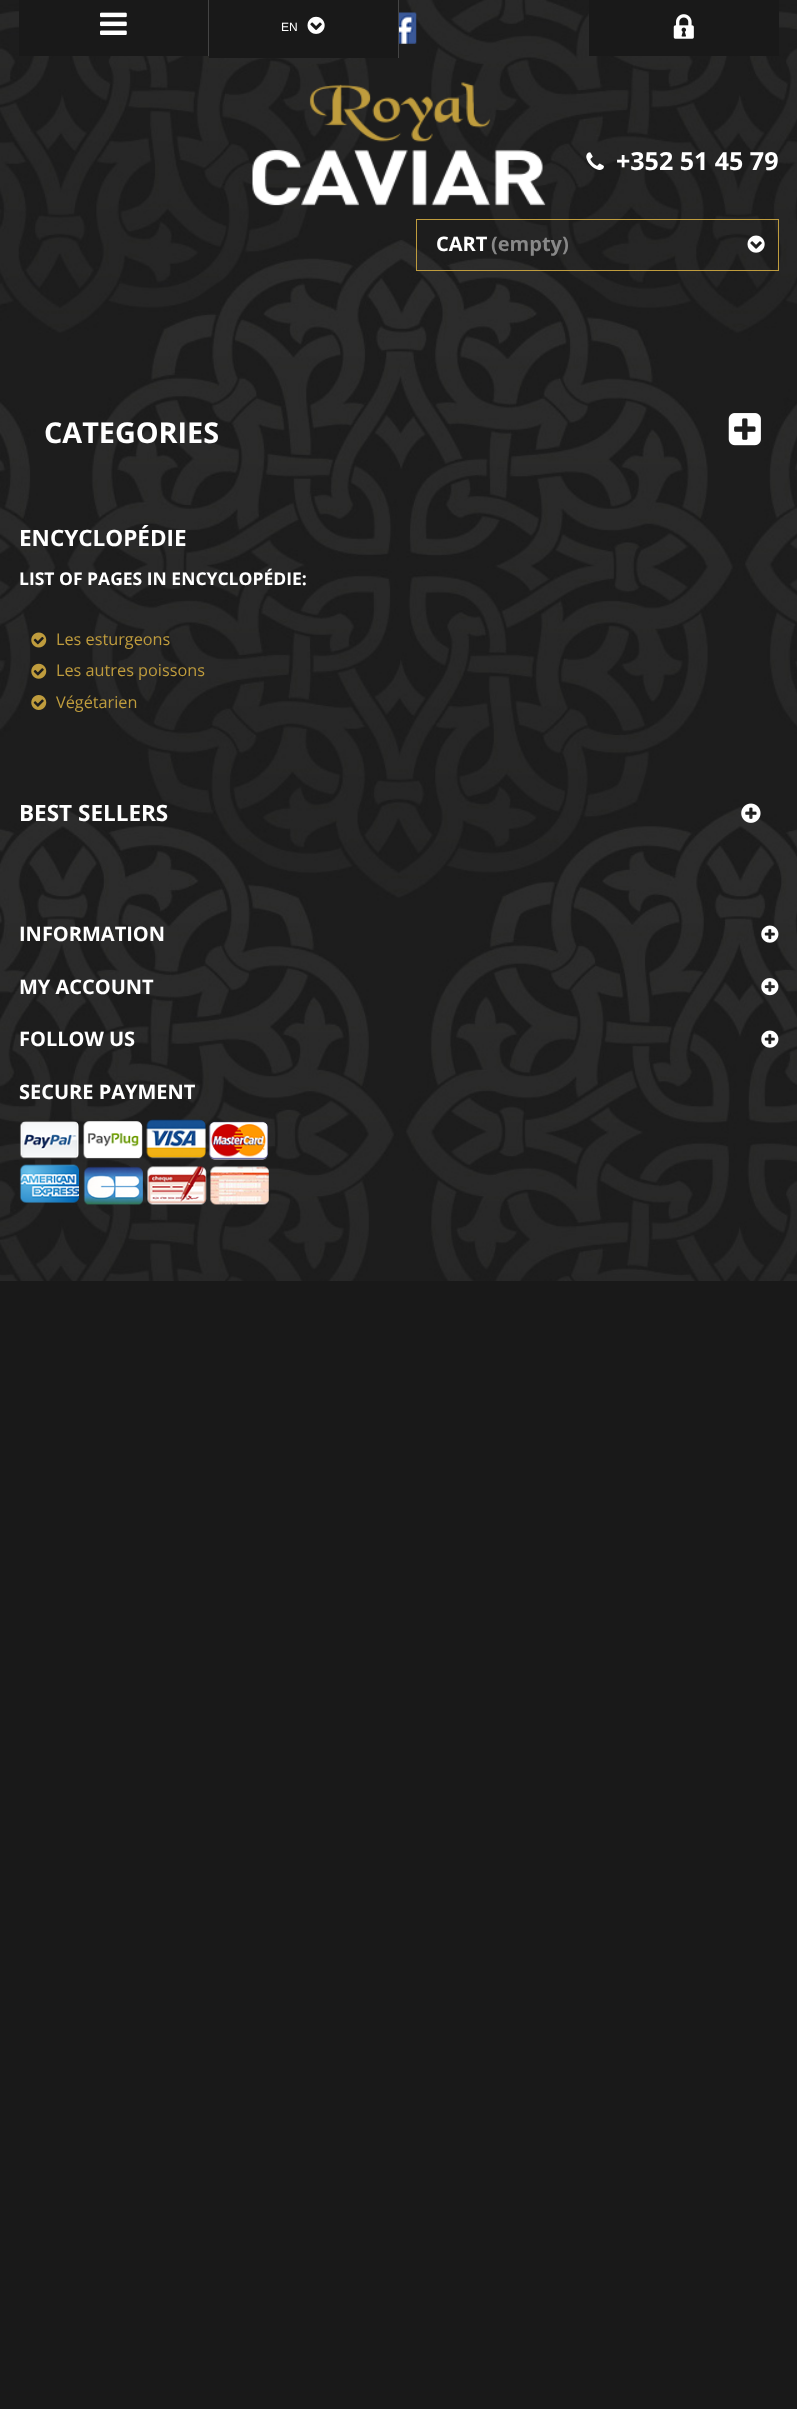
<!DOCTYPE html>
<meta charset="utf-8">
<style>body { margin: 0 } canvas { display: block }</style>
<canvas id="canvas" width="797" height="2409"></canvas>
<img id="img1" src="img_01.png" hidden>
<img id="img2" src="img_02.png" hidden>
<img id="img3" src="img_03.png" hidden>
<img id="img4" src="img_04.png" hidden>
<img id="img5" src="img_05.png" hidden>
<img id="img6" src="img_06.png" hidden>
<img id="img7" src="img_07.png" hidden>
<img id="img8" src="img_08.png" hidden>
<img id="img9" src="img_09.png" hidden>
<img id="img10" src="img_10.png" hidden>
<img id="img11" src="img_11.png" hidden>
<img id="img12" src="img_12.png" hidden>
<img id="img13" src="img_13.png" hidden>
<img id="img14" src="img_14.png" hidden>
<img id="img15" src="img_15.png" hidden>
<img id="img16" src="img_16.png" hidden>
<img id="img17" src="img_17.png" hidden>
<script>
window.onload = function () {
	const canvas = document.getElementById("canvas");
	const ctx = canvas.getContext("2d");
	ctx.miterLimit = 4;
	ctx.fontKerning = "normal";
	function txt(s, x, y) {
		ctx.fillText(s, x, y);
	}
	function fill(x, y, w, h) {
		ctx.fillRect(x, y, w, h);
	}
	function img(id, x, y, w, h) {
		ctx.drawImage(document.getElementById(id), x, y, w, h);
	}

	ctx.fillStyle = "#191919";
	fill(0, 0, 797, 2409);
	img("img1", 0, 0, 797, 1281);
	fill(19, 0, 189, 56);
	ctx.fillStyle = "#444444";
	fill(208, 0, 1, 56);
	img("img2", 100, 12, 27, 23);
	ctx.fillStyle = "#191919";
	fill(209, 0, 189, 58);
	ctx.fillStyle = "#444444";
	fill(398, 0, 1, 58);
	img("img3", 307, 16, 18, 18);
	img("img4", 399, 12, 18, 32);
	ctx.fillStyle = "#191919";
	fill(589, 0, 190, 56);
	img("img5", 673, 14, 21, 25);
	img("img6", 252, 82, 294, 124);
	img("img7", 586, 152, 18, 18);
	ctx.strokeStyle = "#BF9C3D";
	ctx.strokeRect(416.5, 219.5, 362, 51);
	img("img8", 747, 235, 18, 18);
	img("img9", 728, 413, 33, 33);
	img("img10", 31, 632, 16, 16);
	img("img11", 31, 663, 16, 16);
	img("img12", 31, 695, 16, 15);
	img("img13", 741, 803, 20, 20);
	img("img14", 761, 925, 18, 18);
	img("img15", 761, 978, 18, 18);
	img("img16", 761, 1030, 18, 18);
	img("img17", 19, 1119, 250, 86);
	ctx.font = "12px Liberation Sans";
	ctx.fillStyle = "#FFFFFF";
	txt("EN", 281, 31);
	ctx.font = "bold 25px Open Sans";
	txt("+352 51 45 79", 616, 170);
	ctx.font = "bold 20px Open Sans";
	txt("CART", 436, 251);
	ctx.fillStyle = "#888888";
	txt("(empty)", 491, 251);
	ctx.font = "bold 28.75px Open Sans";
	ctx.fillStyle = "#FFFFFF";
	txt("CATEGORIES", 44, 443);
	ctx.font = "bold 22.5px Open Sans";
	txt("ENCYCLOPÉDIE", 19, 546);
	ctx.font = "bold 17.5px Open Sans";
	txt("LIST OF PAGES IN ENCYCLOPÉDIE:", 19, 585);
	ctx.font = "16.25px Open Sans";
	ctx.fillStyle = "#BF9C3D";
	txt("Les esturgeons", 56, 645);
	txt("Les autres poissons", 56, 676);
	txt("Végétarien", 56, 708);
	ctx.font = "bold 22.5px Open Sans";
	ctx.fillStyle = "#FFFFFF";
	txt("BEST SELLERS", 19, 821);
	ctx.font = "bold 20px Open Sans";
	txt("INFORMATION", 19, 941);
	txt("MY ACCOUNT", 19, 994);
	txt("FOLLOW US", 19, 1046);
	txt("SECURE PAYMENT", 19, 1099);
};
</script>
